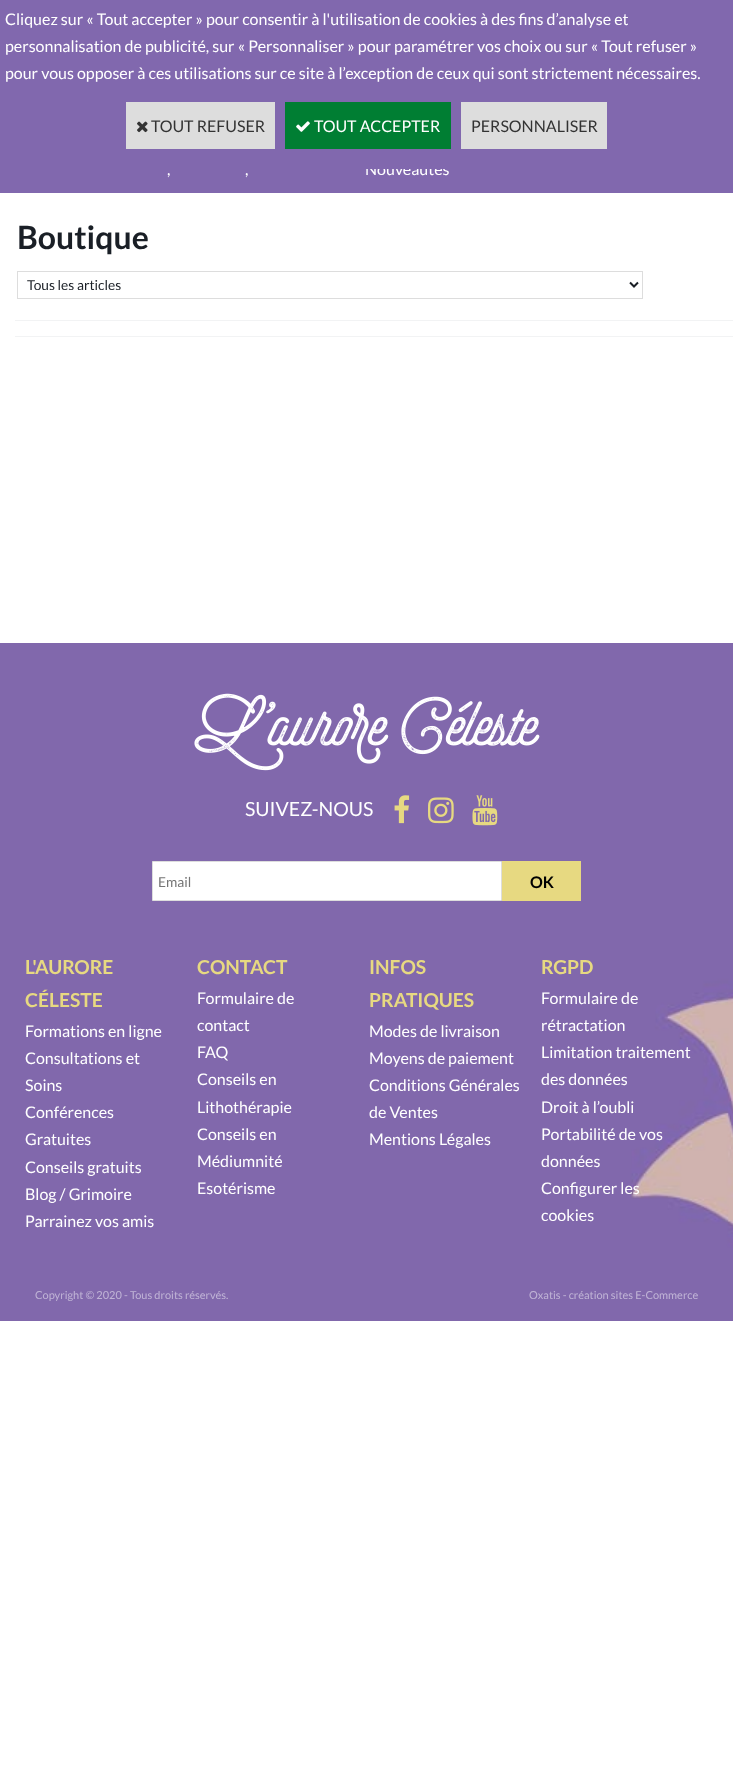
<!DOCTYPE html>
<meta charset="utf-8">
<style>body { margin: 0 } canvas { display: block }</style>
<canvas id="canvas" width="733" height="1771"></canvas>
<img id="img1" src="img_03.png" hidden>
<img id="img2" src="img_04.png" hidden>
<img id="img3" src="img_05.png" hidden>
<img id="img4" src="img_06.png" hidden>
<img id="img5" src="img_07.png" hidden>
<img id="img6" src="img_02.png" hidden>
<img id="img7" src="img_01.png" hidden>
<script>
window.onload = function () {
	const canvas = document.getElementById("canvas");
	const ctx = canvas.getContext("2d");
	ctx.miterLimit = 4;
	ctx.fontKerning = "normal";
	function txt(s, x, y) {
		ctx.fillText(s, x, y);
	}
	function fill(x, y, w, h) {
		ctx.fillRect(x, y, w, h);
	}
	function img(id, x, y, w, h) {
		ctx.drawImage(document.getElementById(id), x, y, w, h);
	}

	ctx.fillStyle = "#FFFFFF";
	fill(0, 0, 733, 1771);
	ctx.fillStyle = "#8168AE";
	fill(0, 169, 733, 24);
	ctx.fillStyle = "#F2F3F4";
	fill(15, 320, 718, 1);
	ctx.strokeStyle = "#DDDDDD";
	ctx.strokeRect(17.5, 271.5, 625, 27);
	ctx.beginPath();
	ctx.moveTo(630, 282.5);
	ctx.lineTo(634, 286.5);
	ctx.lineTo(638, 282.5);
	ctx.strokeStyle = "#1A1F26";
	ctx.lineWidth = 2;
	ctx.stroke();
	fill(15, 336, 718, 1);
	img("img1", 0, 643, 733, 678);
	img("img2", 194, 693, 346, 78);
	img("img3", 394, 795, 16, 29);
	img("img4", 428, 797, 26, 27);
	img("img5", 472, 795, 26, 31);
	ctx.fillStyle = "#FFFFFF";
	ctx.beginPath();
	ctx.rect(152.5, 861.5, 349, 39);
	ctx.fill();
	ctx.strokeStyle = "#DDDDDD";
	ctx.lineWidth = 1;
	ctx.stroke();
	ctx.fillStyle = "#E7D981";
	fill(502, 861, 79, 40);
	ctx.font = "16px Lato";
	ctx.fillStyle = "#FFFFFF";
	txt(",", 167, 175);
	txt(",", 245, 175);
	txt("Nouveautés", 365, 175);
	ctx.fillStyle = "#8168AE";
	fill(0, 0, 733, 169);
	ctx.fillStyle = "#DDDDDD";
	fill(461, 102, 146, 47);
	ctx.fillStyle = "#333333";
	txt("PERSONNALISER", 471, 132);
	ctx.fillStyle = "#007E33";
	fill(285, 102, 166, 47);
	ctx.fillStyle = "#FFFFFF";
	txt("TOUT ACCEPTER", 314, 132);
	img("img6", 296, 121, 14, 11);
	ctx.fillStyle = "#DDDDDD";
	fill(126, 102, 149, 47);
	ctx.fillStyle = "#333333";
	txt("TOUT REFUSER", 151, 132);
	img("img7", 137, 121, 11, 12);
	ctx.fillStyle = "#FFFFFF";
	txt("pour vous opposer à ces utilisations sur ce site à l’exception de ceux qui sont strictement nécessaires.", 5, 79);
	txt("personnalisation de publicité, sur « Personnaliser » pour paramétrer vos choix ou sur « Tout refuser »", 5, 52);
	txt("Cliquez sur « Tout accepter » pour consentir à l'utilisation de cookies à des fins d’analyse et", 5, 25);
	ctx.font = "bold 32px Lato";
	ctx.fillStyle = "#1A1F26";
	txt("Boutique", 17, 249);
	ctx.font = "13.75px Lato";
	txt("Tous les articles", 27, 290);
	ctx.font = "19.5px Lato";
	ctx.fillStyle = "#FFFFFF";
	txt("SUIVEZ-NOUS", 245, 816);
	ctx.font = "13.75px Lato";
	ctx.fillStyle = "#757575";
	txt("Email", 158, 887);
	ctx.font = "bold 16px Lato";
	ctx.fillStyle = "#000000";
	txt("OK", 530, 888);
	ctx.font = "bold 19.25px Lato";
	ctx.fillStyle = "#E7D981";
	txt("L'AURORE", 25, 974);
	txt("CÉLESTE", 25, 1007);
	ctx.font = "16px Lato";
	ctx.fillStyle = "#FFFFFF";
	txt("Formations en ligne", 25, 1037);
	txt("Consultations et", 25, 1064);
	txt("Soins", 25, 1091);
	txt("Conférences", 25, 1118);
	txt("Gratuites", 25, 1145);
	txt("Conseils gratuits", 25, 1173);
	txt("Blog / Grimoire", 25, 1200);
	txt("Parrainez vos amis", 25, 1227);
	ctx.font = "bold 19.25px Lato";
	ctx.fillStyle = "#E7D981";
	txt("CONTACT", 197, 974);
	ctx.font = "16px Lato";
	ctx.fillStyle = "#FFFFFF";
	txt("Formulaire de", 197, 1004);
	txt("contact", 197, 1031);
	txt("FAQ", 197, 1058);
	txt("Conseils en", 197, 1085);
	txt("Lithothérapie", 197, 1113);
	txt("Conseils en", 197, 1140);
	txt("Médiumnité", 197, 1167);
	txt("Esotérisme", 197, 1194);
	ctx.font = "bold 19.25px Lato";
	ctx.fillStyle = "#E7D981";
	txt("INFOS", 369, 974);
	txt("PRATIQUES", 369, 1007);
	ctx.font = "16px Lato";
	ctx.fillStyle = "#FFFFFF";
	txt("Modes de livraison", 369, 1037);
	txt("Moyens de paiement", 369, 1064);
	txt("Conditions Générales", 369, 1091);
	txt("de Ventes", 369, 1118);
	txt("Mentions Légales", 369, 1145);
	ctx.font = "bold 19.25px Lato";
	ctx.fillStyle = "#E7D981";
	txt("RGPD", 541, 974);
	ctx.font = "16px Lato";
	ctx.fillStyle = "#FFFFFF";
	txt("Formulaire de", 541, 1004);
	txt("rétractation", 541, 1031);
	txt("Limitation traitement", 541, 1058);
	txt("des données", 541, 1085);
	txt("Droit à l’oubli", 541, 1113);
	txt("Portabilité de vos", 541, 1140);
	txt("données", 541, 1167);
	txt("Configurer les", 541, 1194);
	txt("cookies", 541, 1221);
	ctx.font = "11px Lato";
	ctx.fillStyle = "#C0B4D6";
	txt("Copyright © 2020 - Tous droits réservés.", 35, 1299);
	txt("Oxatis - création sites E-Commerce", 529, 1299);
};
</script>
